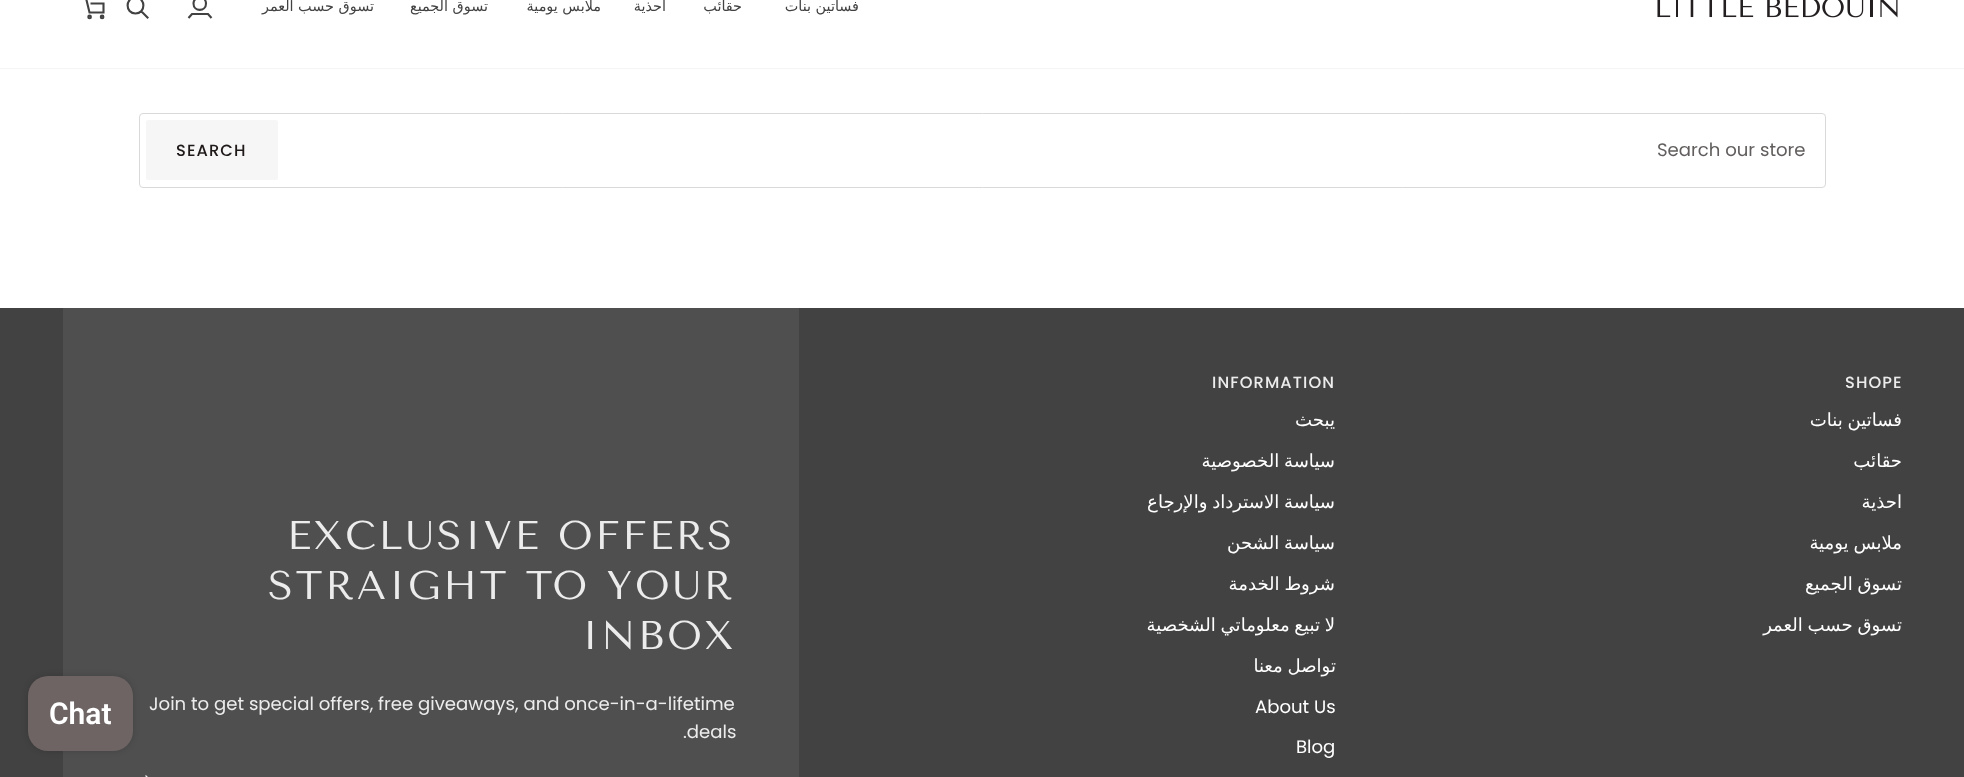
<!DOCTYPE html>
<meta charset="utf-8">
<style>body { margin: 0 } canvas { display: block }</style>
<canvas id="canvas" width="1964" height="777"></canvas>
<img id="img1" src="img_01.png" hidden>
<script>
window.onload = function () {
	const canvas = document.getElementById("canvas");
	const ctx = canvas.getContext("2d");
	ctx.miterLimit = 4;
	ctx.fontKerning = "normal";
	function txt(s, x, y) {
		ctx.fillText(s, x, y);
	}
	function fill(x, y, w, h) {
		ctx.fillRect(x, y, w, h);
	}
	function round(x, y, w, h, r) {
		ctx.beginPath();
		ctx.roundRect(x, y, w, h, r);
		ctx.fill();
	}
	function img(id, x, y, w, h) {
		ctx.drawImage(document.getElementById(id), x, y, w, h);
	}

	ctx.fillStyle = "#FFFFFF";
	fill(0, 0, 1964, 777);
	ctx.fillStyle = "#F7F5F4";
	fill(0, 68, 1964, 1);
	img("img1", 1657, 0, 241, 18);
	ctx.beginPath();
	ctx.moveTo(188.5, 18);
	ctx.lineTo(192, 14);
	ctx.lineTo(208, 14);
	ctx.lineTo(211.5, 18);
	ctx.moveTo(206, 3.5);
	ctx.bezierCurveTo(206, 12, 193.5, 12, 193.5, 3.5);
	ctx.bezierCurveTo(193.5, -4.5, 206, -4.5, 206, 3.5);
	ctx.closePath();
	ctx.strokeStyle = "#424242";
	ctx.lineWidth = 2.1;
	ctx.stroke();
	ctx.beginPath();
	ctx.moveTo(135.5, 13.5);
	ctx.bezierCurveTo(146, 13.5, 146, -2.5, 135.5, -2.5);
	ctx.bezierCurveTo(125, -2.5, 125, 13.5, 135.5, 13.5);
	ctx.closePath();
	ctx.moveTo(147.5, 17.5);
	ctx.lineTo(141.5, 11.5);
	ctx.lineCap = "square";
	ctx.stroke();
	ctx.beginPath();
	ctx.moveTo(82.5, -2);
	ctx.lineTo(86, -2);
	ctx.lineTo(89.5, 12.5);
	ctx.lineTo(103.5, 12.5);
	ctx.lineTo(103.5, 3.5);
	ctx.lineTo(90.5, 3.5);
	ctx.lineCap = "butt";
	ctx.stroke();
	ctx.beginPath();
	ctx.arc(89.6, 16.9, 1.3, 0, Math.PI * 2);
	ctx.stroke();
	ctx.beginPath();
	ctx.arc(102.1, 16.9, 1.3, 0, Math.PI * 2);
	ctx.stroke();
	ctx.beginPath();
	ctx.roundRect(139.5, 113.5, 1686, 74, 3.5);
	ctx.strokeStyle = "#D9D9D9";
	ctx.lineWidth = 1;
	ctx.stroke();
	ctx.fillStyle = "#F6F6F6";
	round(146, 120, 132, 60, 2.5);
	ctx.fillStyle = "#424242";
	fill(0, 308, 1964, 469);
	ctx.fillStyle = "#4F4F4F";
	fill(63, 308, 736, 469);
	ctx.beginPath();
	ctx.moveTo(145.5, 775.5);
	ctx.lineTo(150.5, 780.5);
	ctx.lineTo(145.5, 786);
	ctx.moveTo(125.5, 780.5);
	ctx.lineTo(150.5, 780.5);
	ctx.strokeStyle = "#EDEDED";
	ctx.lineWidth = 1.3;
	ctx.stroke();
	ctx.fillStyle = "rgba(0, 0, 0, 0.15)";
	ctx.filter = "blur(3px)";
	ctx.beginPath();
	ctx.roundRect(28, 676, 105, 75, 20);
	ctx.fill();
	ctx.filter = "none";
	ctx.fillStyle = "#6E6464";
	round(28, 676, 105, 75, 20);
	ctx.letterSpacing = "1px";
	ctx.wordSpacing = "-1px";
	ctx.direction = "rtl";
	ctx.font = "14.4px DejaVu Sans";
	ctx.fillStyle = "#424242";
	txt("فساتين بنات", 859, 11);
	ctx.wordSpacing = "0px";
	txt("حقائب", 742, 11);
	txt("احذية", 666, 11);
	ctx.wordSpacing = "-1px";
	txt("ملابس يومية", 601, 11);
	txt("تسوق الجميع", 488, 11);
	txt("تسوق حسب العمر", 374, 11);
	ctx.letterSpacing = "0px";
	ctx.wordSpacing = "0px";
	ctx.direction = "ltr";
	ctx.font = "18.1px Poppins";
	ctx.fillStyle = "#625E5E";
	txt("Search our store", 1657, 156);
	ctx.letterSpacing = "1.1px";
	ctx.font = "500 16.25px Poppins";
	ctx.fillStyle = "#1F1919";
	txt("SEARCH", 176, 156);
	ctx.fillStyle = "#ECECEC";
	txt("SHOPE", 1845, 388);
	ctx.letterSpacing = "0px";
	ctx.wordSpacing = "-1px";
	ctx.direction = "rtl";
	ctx.font = "18.1px DejaVu Sans";
	ctx.fillStyle = "#FFFFFF";
	txt("فساتين بنات", 1902, 426);
	ctx.wordSpacing = "0px";
	txt("حقائب", 1902, 467);
	txt("احذية", 1902, 508);
	ctx.wordSpacing = "-1px";
	txt("ملابس يومية", 1902, 549);
	txt("تسوق الجميع", 1902, 590);
	txt("تسوق حسب العمر", 1902, 631);
	ctx.letterSpacing = "1.1px";
	ctx.wordSpacing = "0px";
	ctx.direction = "ltr";
	ctx.font = "500 16.25px Poppins";
	ctx.fillStyle = "#ECECEC";
	txt("INFORMATION", 1212, 388);
	ctx.letterSpacing = "0px";
	ctx.direction = "rtl";
	ctx.font = "18.1px DejaVu Sans";
	ctx.fillStyle = "#FFFFFF";
	txt("يبحث", 1335, 426);
	ctx.wordSpacing = "-1px";
	txt("سياسة الخصوصية", 1335, 467);
	txt("سياسة الاسترداد والإرجاع", 1335, 508);
	txt("سياسة الشحن", 1335, 549);
	txt("شروط الخدمة", 1335, 590);
	txt("لا تبيع معلوماتي الشخصية", 1335, 631);
	txt("تواصل معنا", 1336, 672);
	ctx.wordSpacing = "0px";
	ctx.direction = "ltr";
	ctx.font = "18.1px Poppins";
	txt("About Us", 1255, 713);
	txt("Blog", 1296, 753);
	ctx.letterSpacing = "2.75px";
	ctx.font = "40px Tenor Sans";
	ctx.fillStyle = "#ECECEC";
	txt("EXCLUSIVE OFFERS", 287, 549);
	txt("STRAIGHT TO YOUR", 268, 599);
	txt("INBOX", 582, 649);
	ctx.letterSpacing = "0px";
	ctx.font = "18.1px Poppins";
	txt("Join to get special offers, free giveaways, and once-in-a-lifetime", 149, 710);
	txt(".deals", 683, 738);
	ctx.font = "600 30px Roboto";
	ctx.fillStyle = "#FFFFFF";
	txt("Chat", 49, 724);
};
</script>
